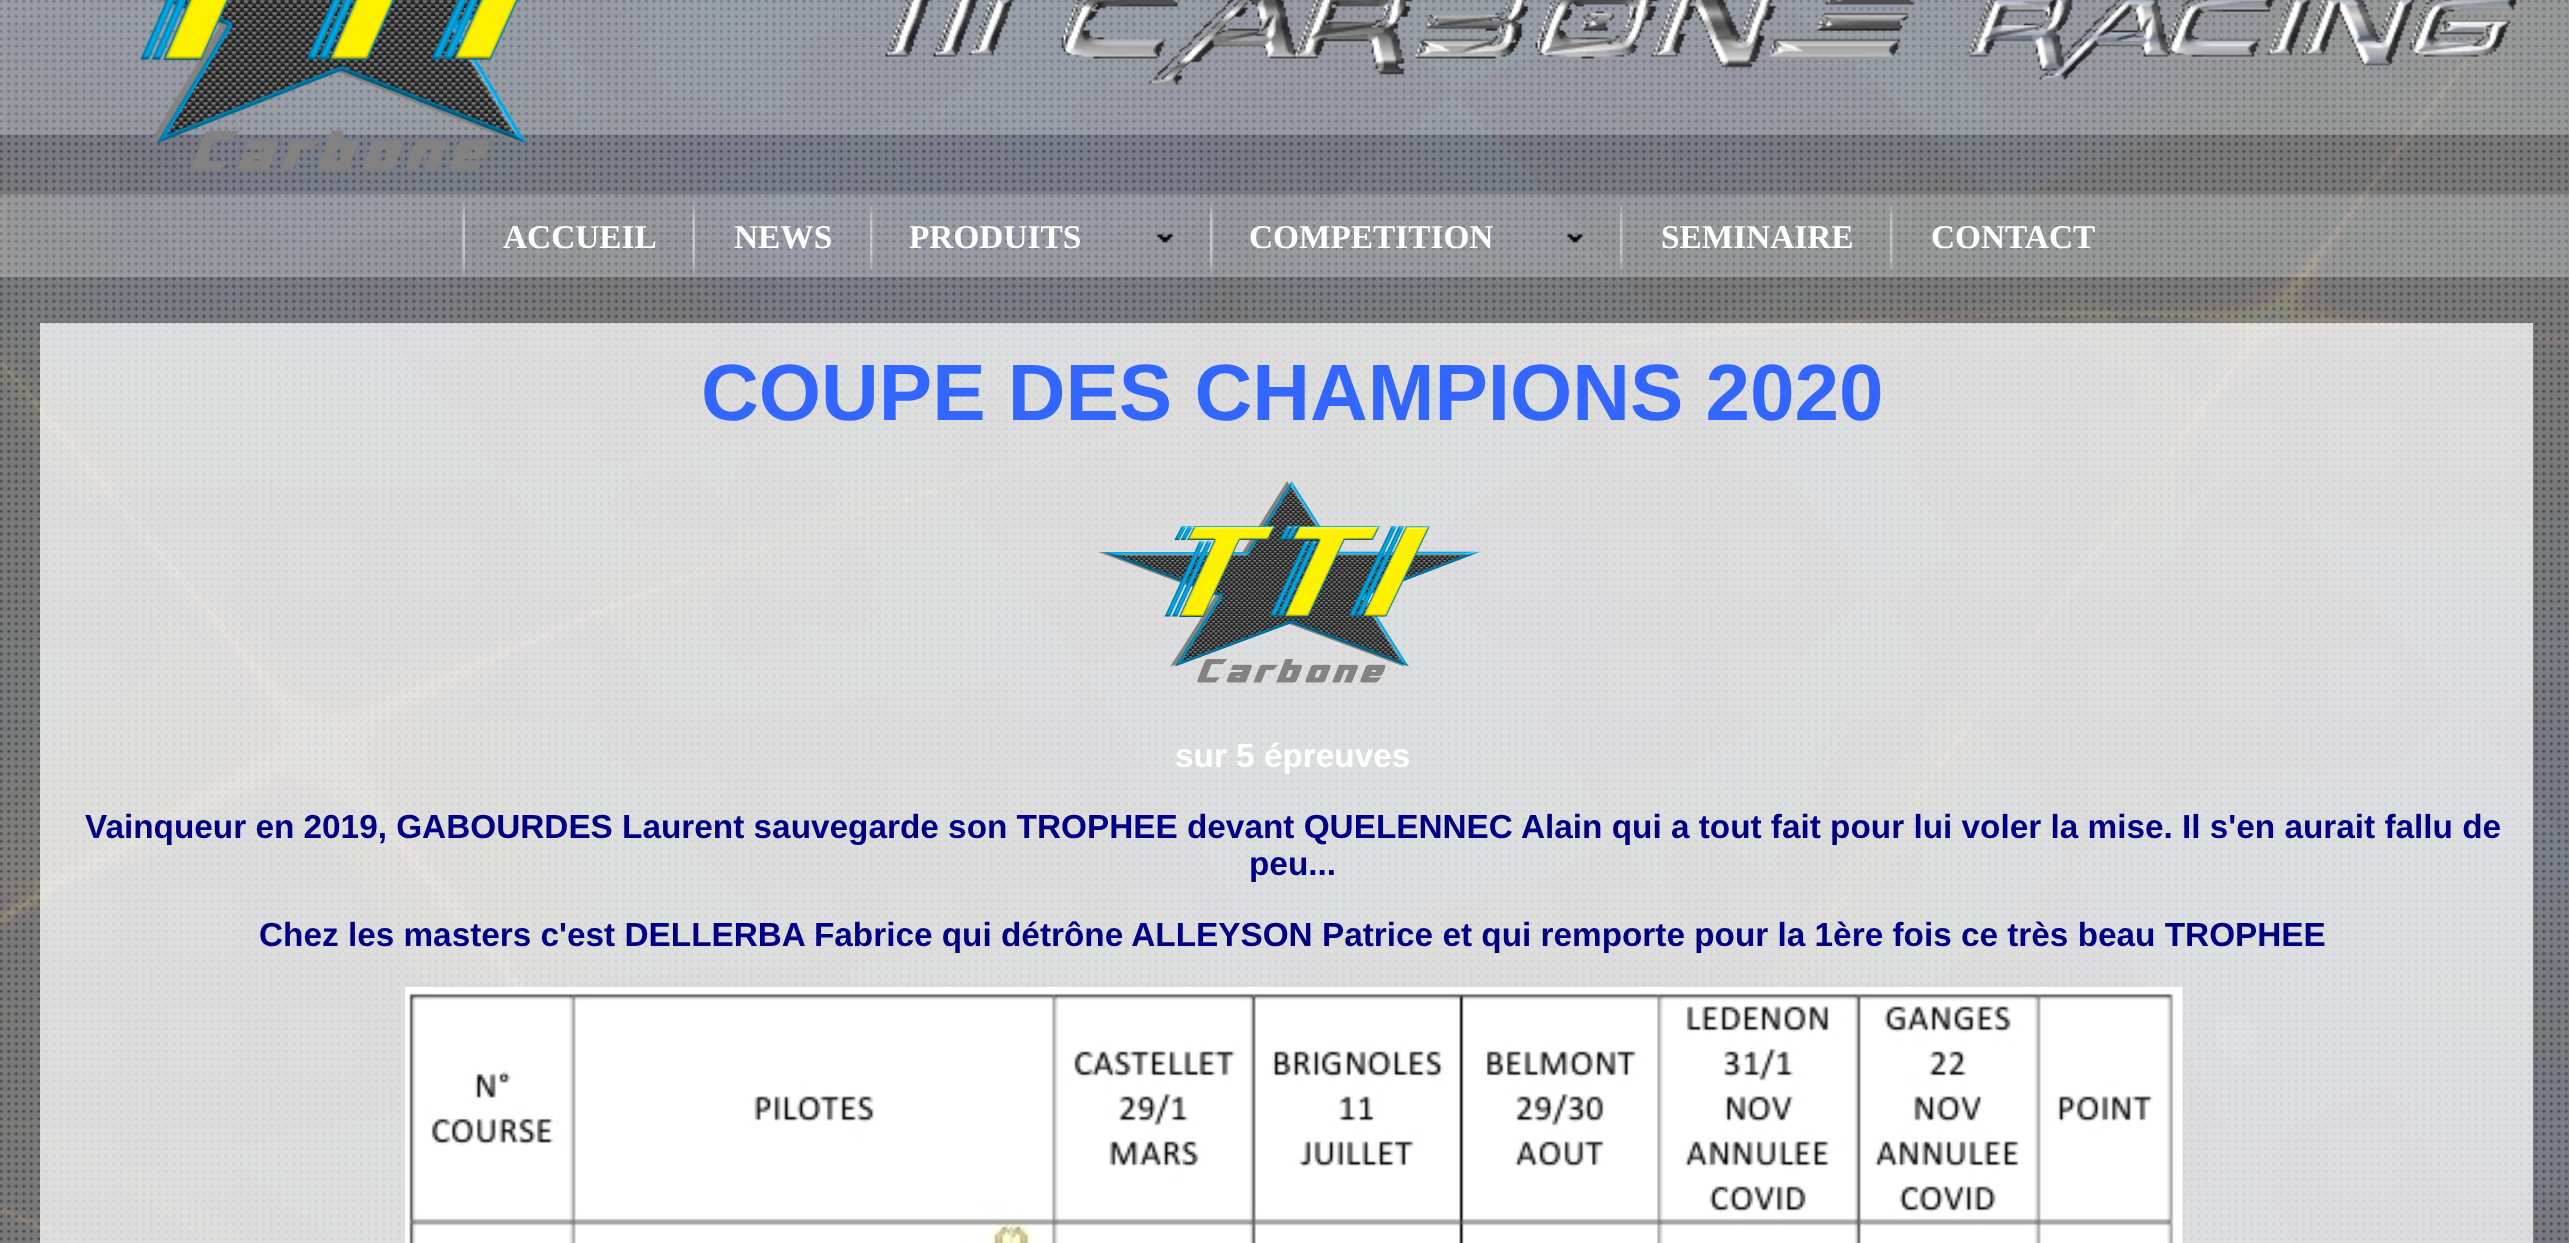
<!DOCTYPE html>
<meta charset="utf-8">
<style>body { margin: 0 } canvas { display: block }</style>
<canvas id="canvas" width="2569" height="1243"></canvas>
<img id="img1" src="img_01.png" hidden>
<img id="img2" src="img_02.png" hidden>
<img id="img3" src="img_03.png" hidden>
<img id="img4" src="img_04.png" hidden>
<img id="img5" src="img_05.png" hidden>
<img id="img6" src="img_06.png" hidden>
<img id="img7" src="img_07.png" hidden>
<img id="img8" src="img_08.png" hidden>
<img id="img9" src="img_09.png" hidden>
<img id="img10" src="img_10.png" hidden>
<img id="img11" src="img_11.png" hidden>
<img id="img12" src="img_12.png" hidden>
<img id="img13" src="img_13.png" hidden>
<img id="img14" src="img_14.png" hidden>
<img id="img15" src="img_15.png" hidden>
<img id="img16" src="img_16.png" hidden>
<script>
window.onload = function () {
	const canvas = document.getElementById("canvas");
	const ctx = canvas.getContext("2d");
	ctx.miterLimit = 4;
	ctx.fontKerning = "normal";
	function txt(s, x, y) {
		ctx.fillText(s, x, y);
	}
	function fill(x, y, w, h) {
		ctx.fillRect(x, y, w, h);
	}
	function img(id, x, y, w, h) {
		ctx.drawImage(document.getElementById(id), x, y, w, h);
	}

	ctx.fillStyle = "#949494";
	fill(0, 0, 2569, 1243);
	img("img1", 0, 0, 2569, 1243);
	img("img2", 0, 0, 2569, 1241);
	img("img3", 0, 0, 2569, 135);
	img("img4", 140, 0, 387, 170);
	img("img5", 885, 0, 1632, 85);
	img("img6", 0, 194, 2569, 83);
	img("img7", 462, 201, 3, 76);
	img("img8", 692, 201, 3, 76);
	img("img9", 870, 201, 3, 78);
	img("img10", 1157, 233, 16, 10);
	img("img11", 1210, 201, 3, 76);
	img("img12", 1567, 233, 16, 10);
	img("img13", 1620, 201, 3, 78);
	img("img14", 1890, 201, 3, 78);
	ctx.fillStyle = "rgba(255, 255, 255, 0.75)";
	fill(40, 323, 2493, 920);
	img("img15", 1098, 481, 383, 202);
	img("img16", 405, 987, 1778, 256);
	ctx.font = "bold 33.33px Liberation Serif";
	ctx.fillStyle = "#FFFFFF";
	txt("ACCUEIL", 503, 248);
	txt("NEWS", 734, 248);
	txt("PRODUITS", 909, 248);
	txt("COMPETITION", 1249, 248);
	txt("SEMINAIRE", 1661, 248);
	txt("CONTACT", 1931, 248);
	ctx.font = "bold 80px Liberation Sans";
	ctx.fillStyle = "#3366FF";
	txt("COUPE DES CHAMPIONS 2020", 701, 420);
	ctx.font = "bold 33.33px Liberation Sans";
	ctx.fillStyle = "#FFFFFF";
	txt("sur 5 épreuves", 1175, 767);
	ctx.fillStyle = "#000084";
	txt("Vainqueur en 2019, GABOURDES Laurent sauvegarde son TROPHEE devant QUELENNEC Alain qui a tout fait pour lui voler la mise. Il s'en aurait fallu de", 85, 838);
	txt("peu...", 1249, 875);
	txt("Chez les masters c'est DELLERBA Fabrice qui détrône ALLEYSON Patrice et qui remporte pour la 1ère fois ce très beau TROPHEE", 259, 946);
};
</script>
